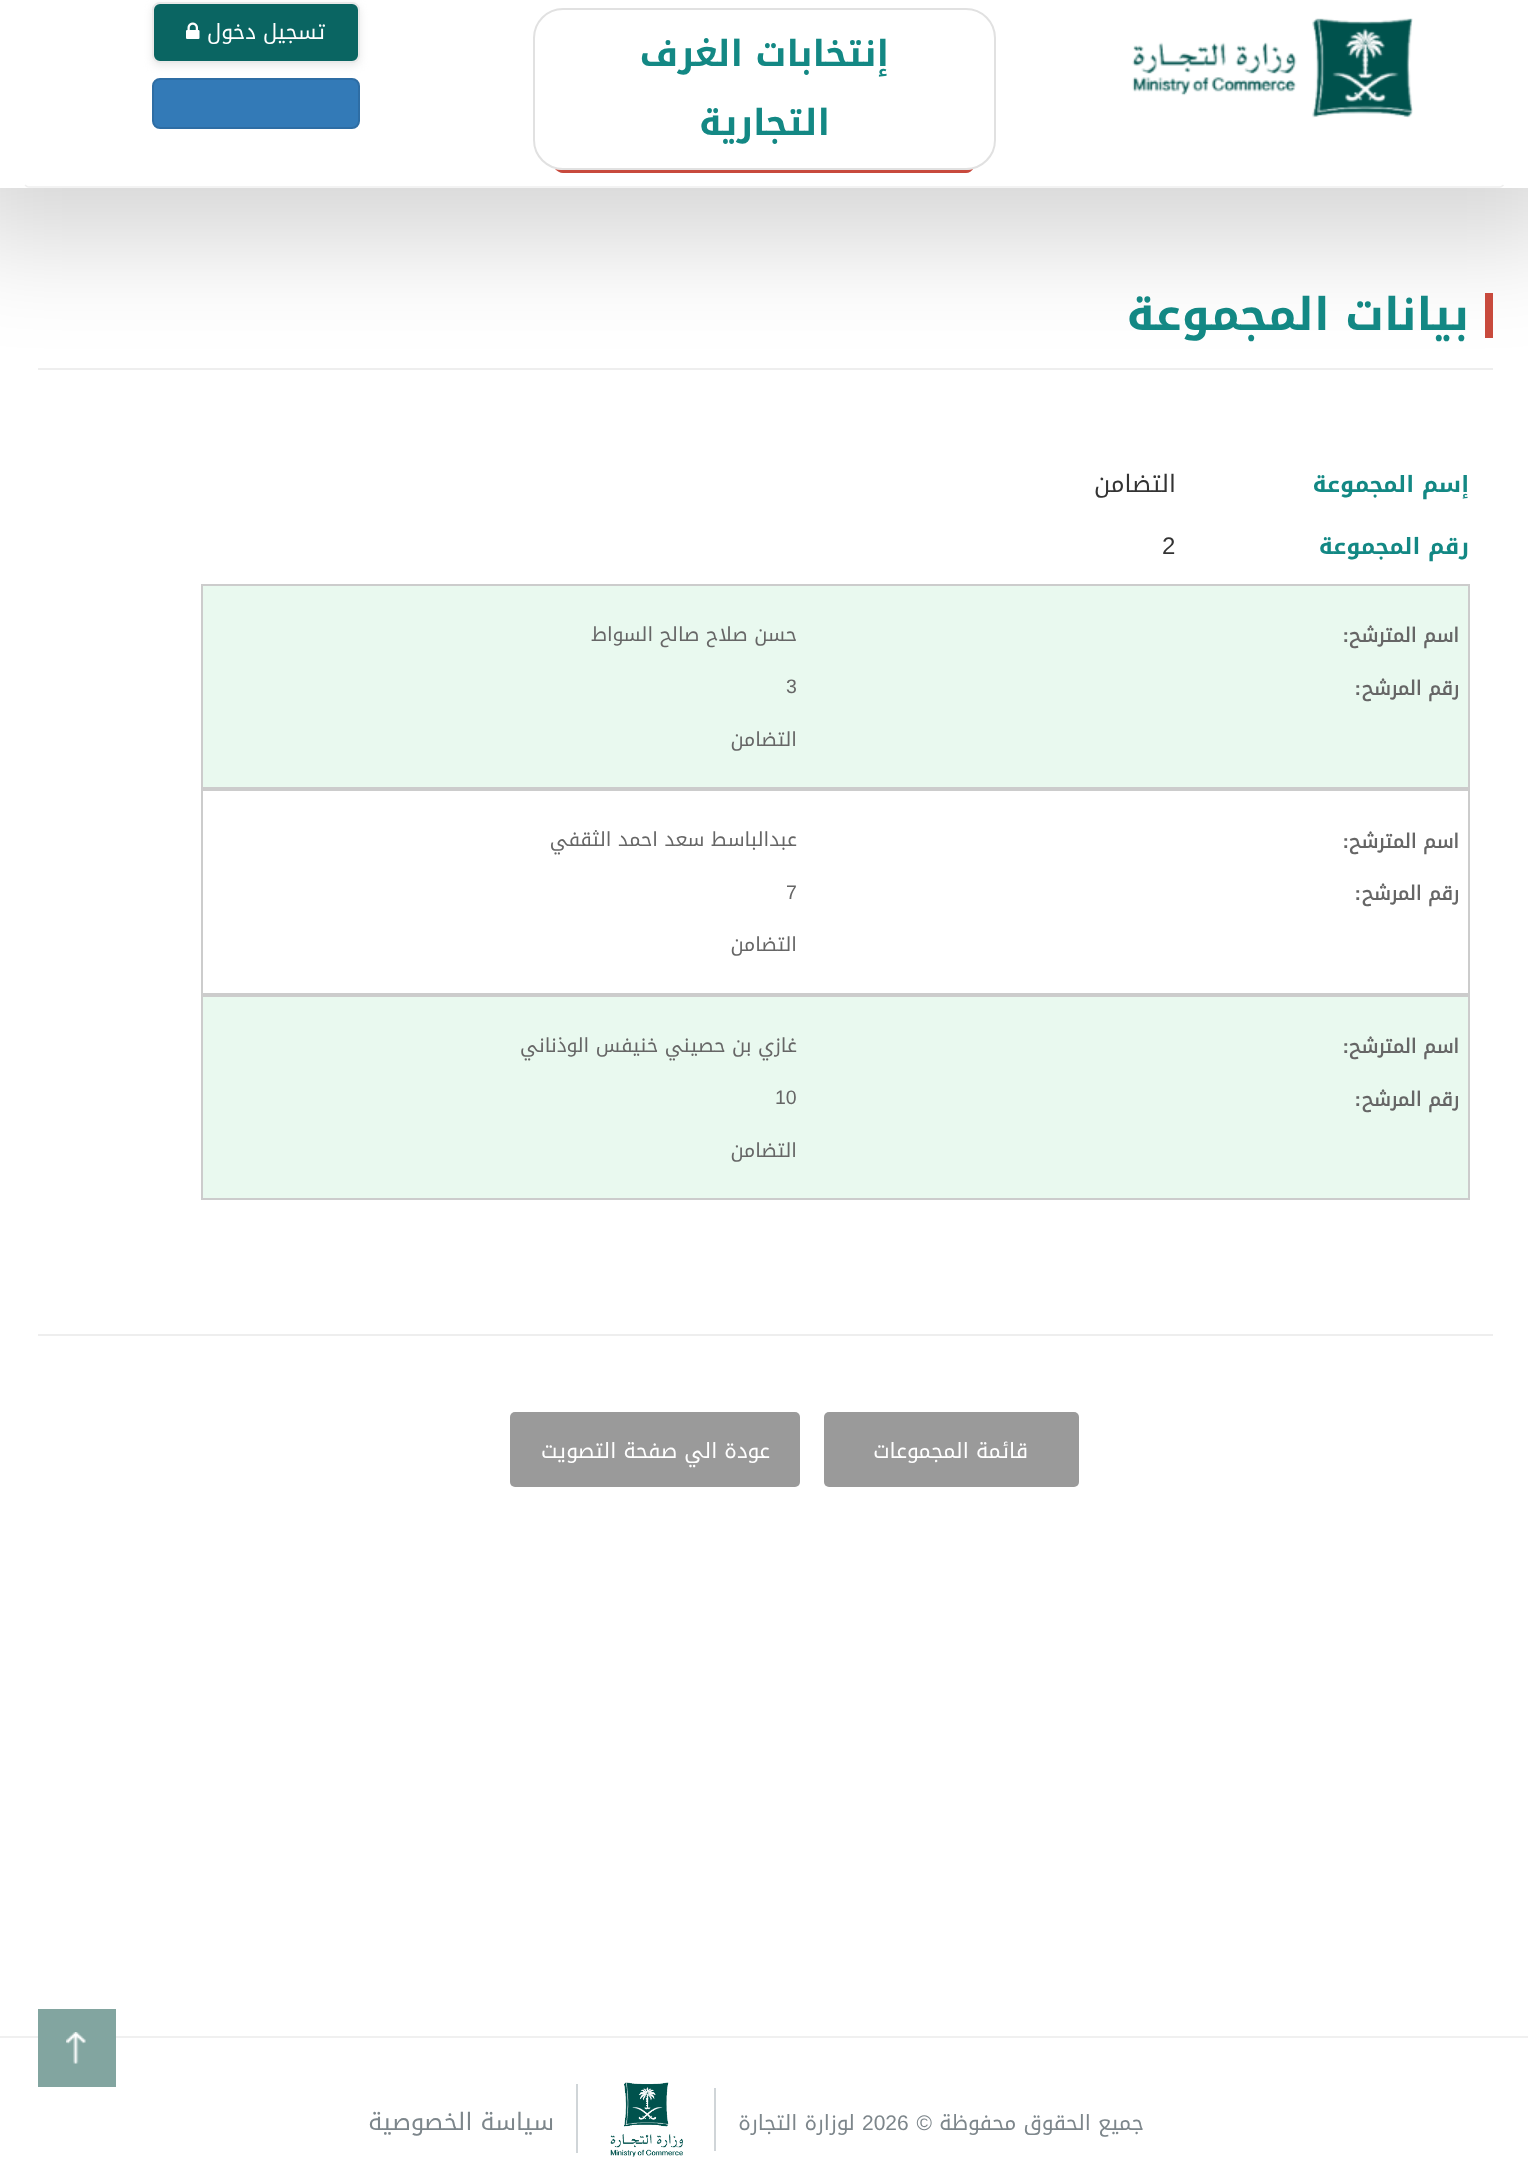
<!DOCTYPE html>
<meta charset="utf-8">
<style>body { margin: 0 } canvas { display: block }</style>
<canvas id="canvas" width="1528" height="2174"></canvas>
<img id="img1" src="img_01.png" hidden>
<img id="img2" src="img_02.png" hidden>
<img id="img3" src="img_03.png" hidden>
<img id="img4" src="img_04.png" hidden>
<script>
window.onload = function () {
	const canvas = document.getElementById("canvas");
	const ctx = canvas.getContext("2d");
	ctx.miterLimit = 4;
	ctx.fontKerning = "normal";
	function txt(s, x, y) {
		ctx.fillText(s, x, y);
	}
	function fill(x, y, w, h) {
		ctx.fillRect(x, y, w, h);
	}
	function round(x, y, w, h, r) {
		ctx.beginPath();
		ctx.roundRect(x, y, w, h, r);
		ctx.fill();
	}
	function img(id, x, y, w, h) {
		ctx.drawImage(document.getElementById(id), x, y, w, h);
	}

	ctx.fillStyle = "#FFFFFF";
	fill(0, 0, 1528, 2174);
	ctx.fillStyle = "rgba(0, 0, 0, 0.16)";
	ctx.filter = "blur(52.5px)";
	ctx.beginPath();
	ctx.rect(-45, -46, 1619, 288);
	ctx.fill();
	ctx.filter = "none";
	ctx.fillStyle = "#FFFFFF";
	fill(0, 0, 1528, 188);
	ctx.beginPath();
	ctx.moveTo(1503.5, 185);
	ctx.bezierCurveTo(1502.5, 186, 1501.5, 187, 1500, 187);
	ctx.lineTo(28.5, 187);
	ctx.bezierCurveTo(27, 187, 26, 186, 25, 185);
	ctx.strokeStyle = "#F0F0F0";
	ctx.lineWidth = 1.5;
	ctx.stroke();
	img("img1", 1132, 18, 281, 100);
	ctx.fillStyle = "#E9E9E9";
	ctx.filter = "blur(4.5px)";
	ctx.beginPath();
	ctx.roundRect(152, 5, 208, 61, 8);
	ctx.fill();
	ctx.filter = "none";
	ctx.fillStyle = "#0A6562";
	ctx.beginPath();
	ctx.roundRect(153, 3, 206, 59, 7);
	ctx.fill();
	ctx.strokeStyle = "#E9E9E9";
	ctx.lineWidth = 2;
	ctx.stroke();
	img("img2", 186, 22, 14, 17);
	ctx.fillStyle = "#337AB7";
	ctx.beginPath();
	ctx.roundRect(153, 79, 206, 49, 7);
	ctx.fill();
	ctx.strokeStyle = "#2E6DA4";
	ctx.stroke();
	ctx.fillStyle = "#C84A3D";
	ctx.beginPath();
	ctx.moveTo(555, 169);
	ctx.bezierCurveTo(557, 171, 560, 173, 563, 173);
	ctx.lineTo(966, 173);
	ctx.bezierCurveTo(969, 173, 972, 171, 974, 168);
	ctx.bezierCurveTo(971, 169, 969, 170, 966, 170);
	ctx.lineTo(562, 170);
	ctx.closePath();
	ctx.fill();
	ctx.beginPath();
	ctx.roundRect(534, 9, 461, 160, 29);
	ctx.strokeStyle = "#E1E1E1";
	ctx.stroke();
	fill(1485, 293, 8, 45);
	ctx.fillStyle = "#EEEEEE";
	fill(38, 368, 1455, 2);
	ctx.fillStyle = "#E9F9EF";
	ctx.beginPath();
	ctx.rect(202, 585, 1267, 203);
	ctx.fill();
	ctx.strokeStyle = "#CCCCCC";
	ctx.stroke();
	ctx.strokeRect(202, 790, 1267, 204);
	ctx.beginPath();
	ctx.rect(202, 996, 1267, 203);
	ctx.fill();
	ctx.stroke();
	ctx.fillStyle = "#EEEEEE";
	fill(38, 1334, 1455, 2);
	ctx.fillStyle = "#9A9A9A";
	round(824, 1412, 255, 75, 5);
	round(510, 1412, 290, 75, 5);
	ctx.fillStyle = "#F0F0F0";
	fill(0, 2036, 1528, 2);
	ctx.fillStyle = "#D0D5D8";
	fill(714, 2088, 2, 63);
	img("img3", 610, 2082, 73, 75);
	fill(576, 2084, 2, 69);
	ctx.fillStyle = "#82A5A0";
	fill(38, 2009, 78, 78);
	img("img4", 66, 2032, 20, 32);
	ctx.direction = "rtl";
	ctx.font = "21px Noto Kufi Arabic";
	ctx.fillStyle = "#FFFFFF";
	txt("تسجيل دخول", 325, 39);
	ctx.font = "bold 36px Noto Kufi Arabic";
	ctx.fillStyle = "#138884";
	txt("إنتخابات الغرف", 889, 66);
	txt("التجارية", 830, 135);
	ctx.font = "bold 45px Noto Kufi Arabic";
	txt("بيانات المجموعة", 1469, 330);
	ctx.font = "bold 22.5px Noto Kufi Arabic";
	txt("إسم المجموعة", 1469, 492);
	ctx.font = "24px Noto Kufi Arabic";
	ctx.fillStyle = "#333333";
	txt("التضامن", 1176, 492);
	ctx.font = "bold 22.5px Noto Kufi Arabic";
	ctx.fillStyle = "#138884";
	txt("رقم المجموعة", 1469, 554);
	ctx.direction = "ltr";
	ctx.font = "24px Liberation Sans";
	ctx.fillStyle = "#333333";
	txt("2", 1162, 554);
	ctx.direction = "rtl";
	ctx.font = "bold 19.5px 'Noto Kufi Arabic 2'";
	ctx.fillStyle = "#666666";
	txt("اسم المترشح", 1459, 642);
	ctx.font = "bold 19.5px Liberation Sans";
	txt(":", 1349, 642);
	ctx.font = "19.5px Noto Kufi Arabic";
	txt("حسن صلاح صالح السواط", 797, 641);
	ctx.font = "bold 19.5px 'Noto Kufi Arabic 2'";
	txt("رقم المرشح", 1459, 695);
	ctx.font = "bold 19.5px Liberation Sans";
	txt(":", 1361, 695);
	ctx.direction = "ltr";
	ctx.font = "19.5px Liberation Sans";
	txt("3", 786, 693);
	ctx.direction = "rtl";
	ctx.font = "19.5px Noto Kufi Arabic";
	txt("التضامن", 797, 746);
	ctx.font = "bold 19.5px 'Noto Kufi Arabic 2'";
	txt("اسم المترشح", 1459, 848);
	ctx.font = "bold 19.5px Liberation Sans";
	txt(":", 1349, 848);
	ctx.font = "19.5px Noto Kufi Arabic";
	txt("عبدالباسط سعد احمد الثقفي", 797, 846);
	ctx.font = "bold 19.5px 'Noto Kufi Arabic 2'";
	txt("رقم المرشح", 1459, 900);
	ctx.font = "bold 19.5px Liberation Sans";
	txt(":", 1361, 900);
	ctx.direction = "ltr";
	ctx.font = "19.5px Liberation Sans";
	txt("7", 786, 899);
	ctx.direction = "rtl";
	ctx.font = "19.5px Noto Kufi Arabic";
	txt("التضامن", 797, 951);
	ctx.font = "bold 19.5px 'Noto Kufi Arabic 2'";
	txt("اسم المترشح", 1459, 1053);
	ctx.font = "bold 19.5px Liberation Sans";
	txt(":", 1349, 1053);
	ctx.font = "19.5px Noto Kufi Arabic";
	txt("غازي بن حصيني خنيفس الوذناني", 797, 1052);
	ctx.font = "bold 19.5px 'Noto Kufi Arabic 2'";
	txt("رقم المرشح", 1459, 1106);
	ctx.font = "bold 19.5px Liberation Sans";
	txt(":", 1361, 1106);
	ctx.direction = "ltr";
	ctx.font = "19.5px Liberation Sans";
	txt("10", 775, 1104);
	ctx.direction = "rtl";
	ctx.font = "19.5px Noto Kufi Arabic";
	txt("التضامن", 797, 1157);
	ctx.font = "21px Noto Kufi Arabic";
	ctx.fillStyle = "#FFFFFF";
	txt("قائمة المجموعات", 1028, 1458);
	txt("عودة الي صفحة التصويت", 770, 1458);
	ctx.fillStyle = "#7D868B";
	txt("جميع الحقوق محفوظة", 1144, 2130);
	ctx.font = "21px Liberation Sans";
	txt("©", 932, 2130);
	ctx.direction = "ltr";
	txt("2026", 862, 2130);
	ctx.direction = "rtl";
	ctx.font = "21px Noto Kufi Arabic";
	txt("لوزارة التجارة", 855, 2130);
	ctx.font = "24px Noto Kufi Arabic";
	txt("سياسة الخصوصية", 554, 2130);
};
</script>
